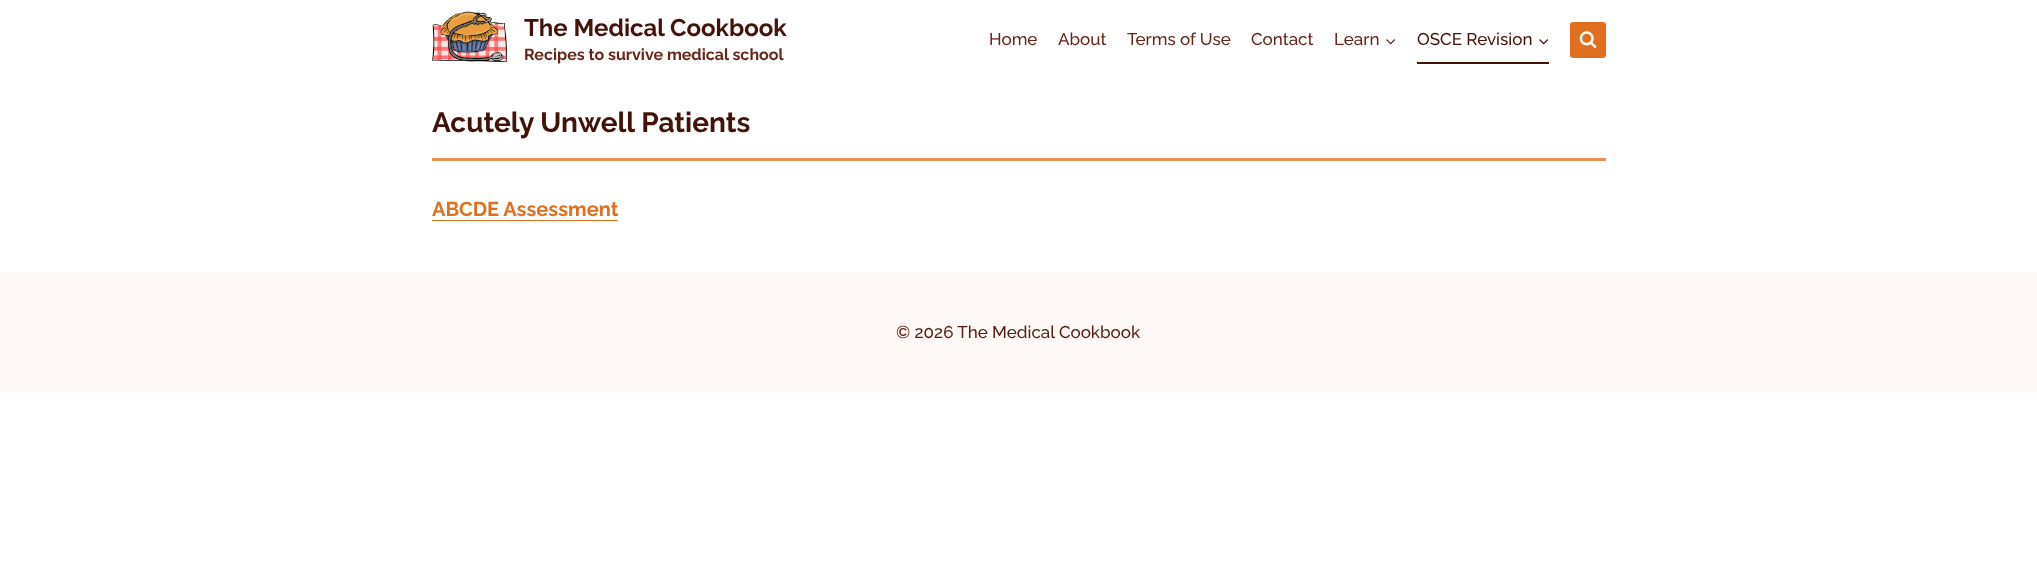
<!DOCTYPE html>
<meta charset="utf-8">
<style>body { margin: 0 } canvas { display: block }</style>
<canvas id="canvas" width="2037" height="576"></canvas>
<img id="img1" src="img_01.png" hidden>
<img id="img2" src="img_02.png" hidden>
<img id="img3" src="img_03.png" hidden>
<img id="img4" src="img_04.png" hidden>
<script>
window.onload = function () {
	const canvas = document.getElementById("canvas");
	const ctx = canvas.getContext("2d");
	ctx.miterLimit = 4;
	ctx.fontKerning = "normal";
	function txt(s, x, y) {
		ctx.fillText(s, x, y);
	}
	function fill(x, y, w, h) {
		ctx.fillRect(x, y, w, h);
	}
	function round(x, y, w, h, r) {
		ctx.beginPath();
		ctx.roundRect(x, y, w, h, r);
		ctx.fill();
	}
	function img(id, x, y, w, h) {
		ctx.drawImage(document.getElementById(id), x, y, w, h);
	}

	ctx.fillStyle = "#FFFFFF";
	fill(0, 0, 2037, 576);
	img("img1", 432, 11, 75, 52);
	img("img2", 1386, 39, 10, 6);
	img("img3", 1539, 39, 10, 6);
	ctx.fillStyle = "#431209";
	fill(1417, 62, 132, 2);
	ctx.fillStyle = "#E06F1F";
	round(1570, 22, 36, 36, 3);
	img("img4", 1579, 31, 18, 17);
	ctx.fillStyle = "#EA9051";
	fill(432, 158, 1174, 3);
	ctx.fillStyle = "#E06F1F";
	fill(432, 220, 186, 1);
	ctx.fillStyle = "#FEF9F6";
	fill(0, 272, 2037, 121);
	ctx.font = "bold 24px Raleway";
	ctx.fillStyle = "#431209";
	txt("The Medical Cookbook", 524, 36);
	ctx.font = "bold 16px Raleway";
	ctx.fillStyle = "#652519";
	txt("Recipes to survive medical school", 524, 60);
	ctx.font = "500 17px Raleway";
	txt("Home", 989, 45);
	txt("About", 1058, 45);
	txt("Terms of Use", 1127, 45);
	txt("Contact", 1251, 45);
	txt("Learn", 1334, 45);
	ctx.fillStyle = "#431209";
	txt("OSCE Revision", 1417, 45);
	ctx.font = "bold 28px Raleway";
	txt("Acutely Unwell Patients", 432, 132);
	ctx.font = "bold 20px Raleway";
	ctx.fillStyle = "#E06F1F";
	txt("ABCDE Assessment", 432, 216);
	ctx.font = "500 17px Raleway";
	ctx.fillStyle = "#551B0E";
	txt("© 2026 The Medical Cookbook", 896, 338);
};
</script>
